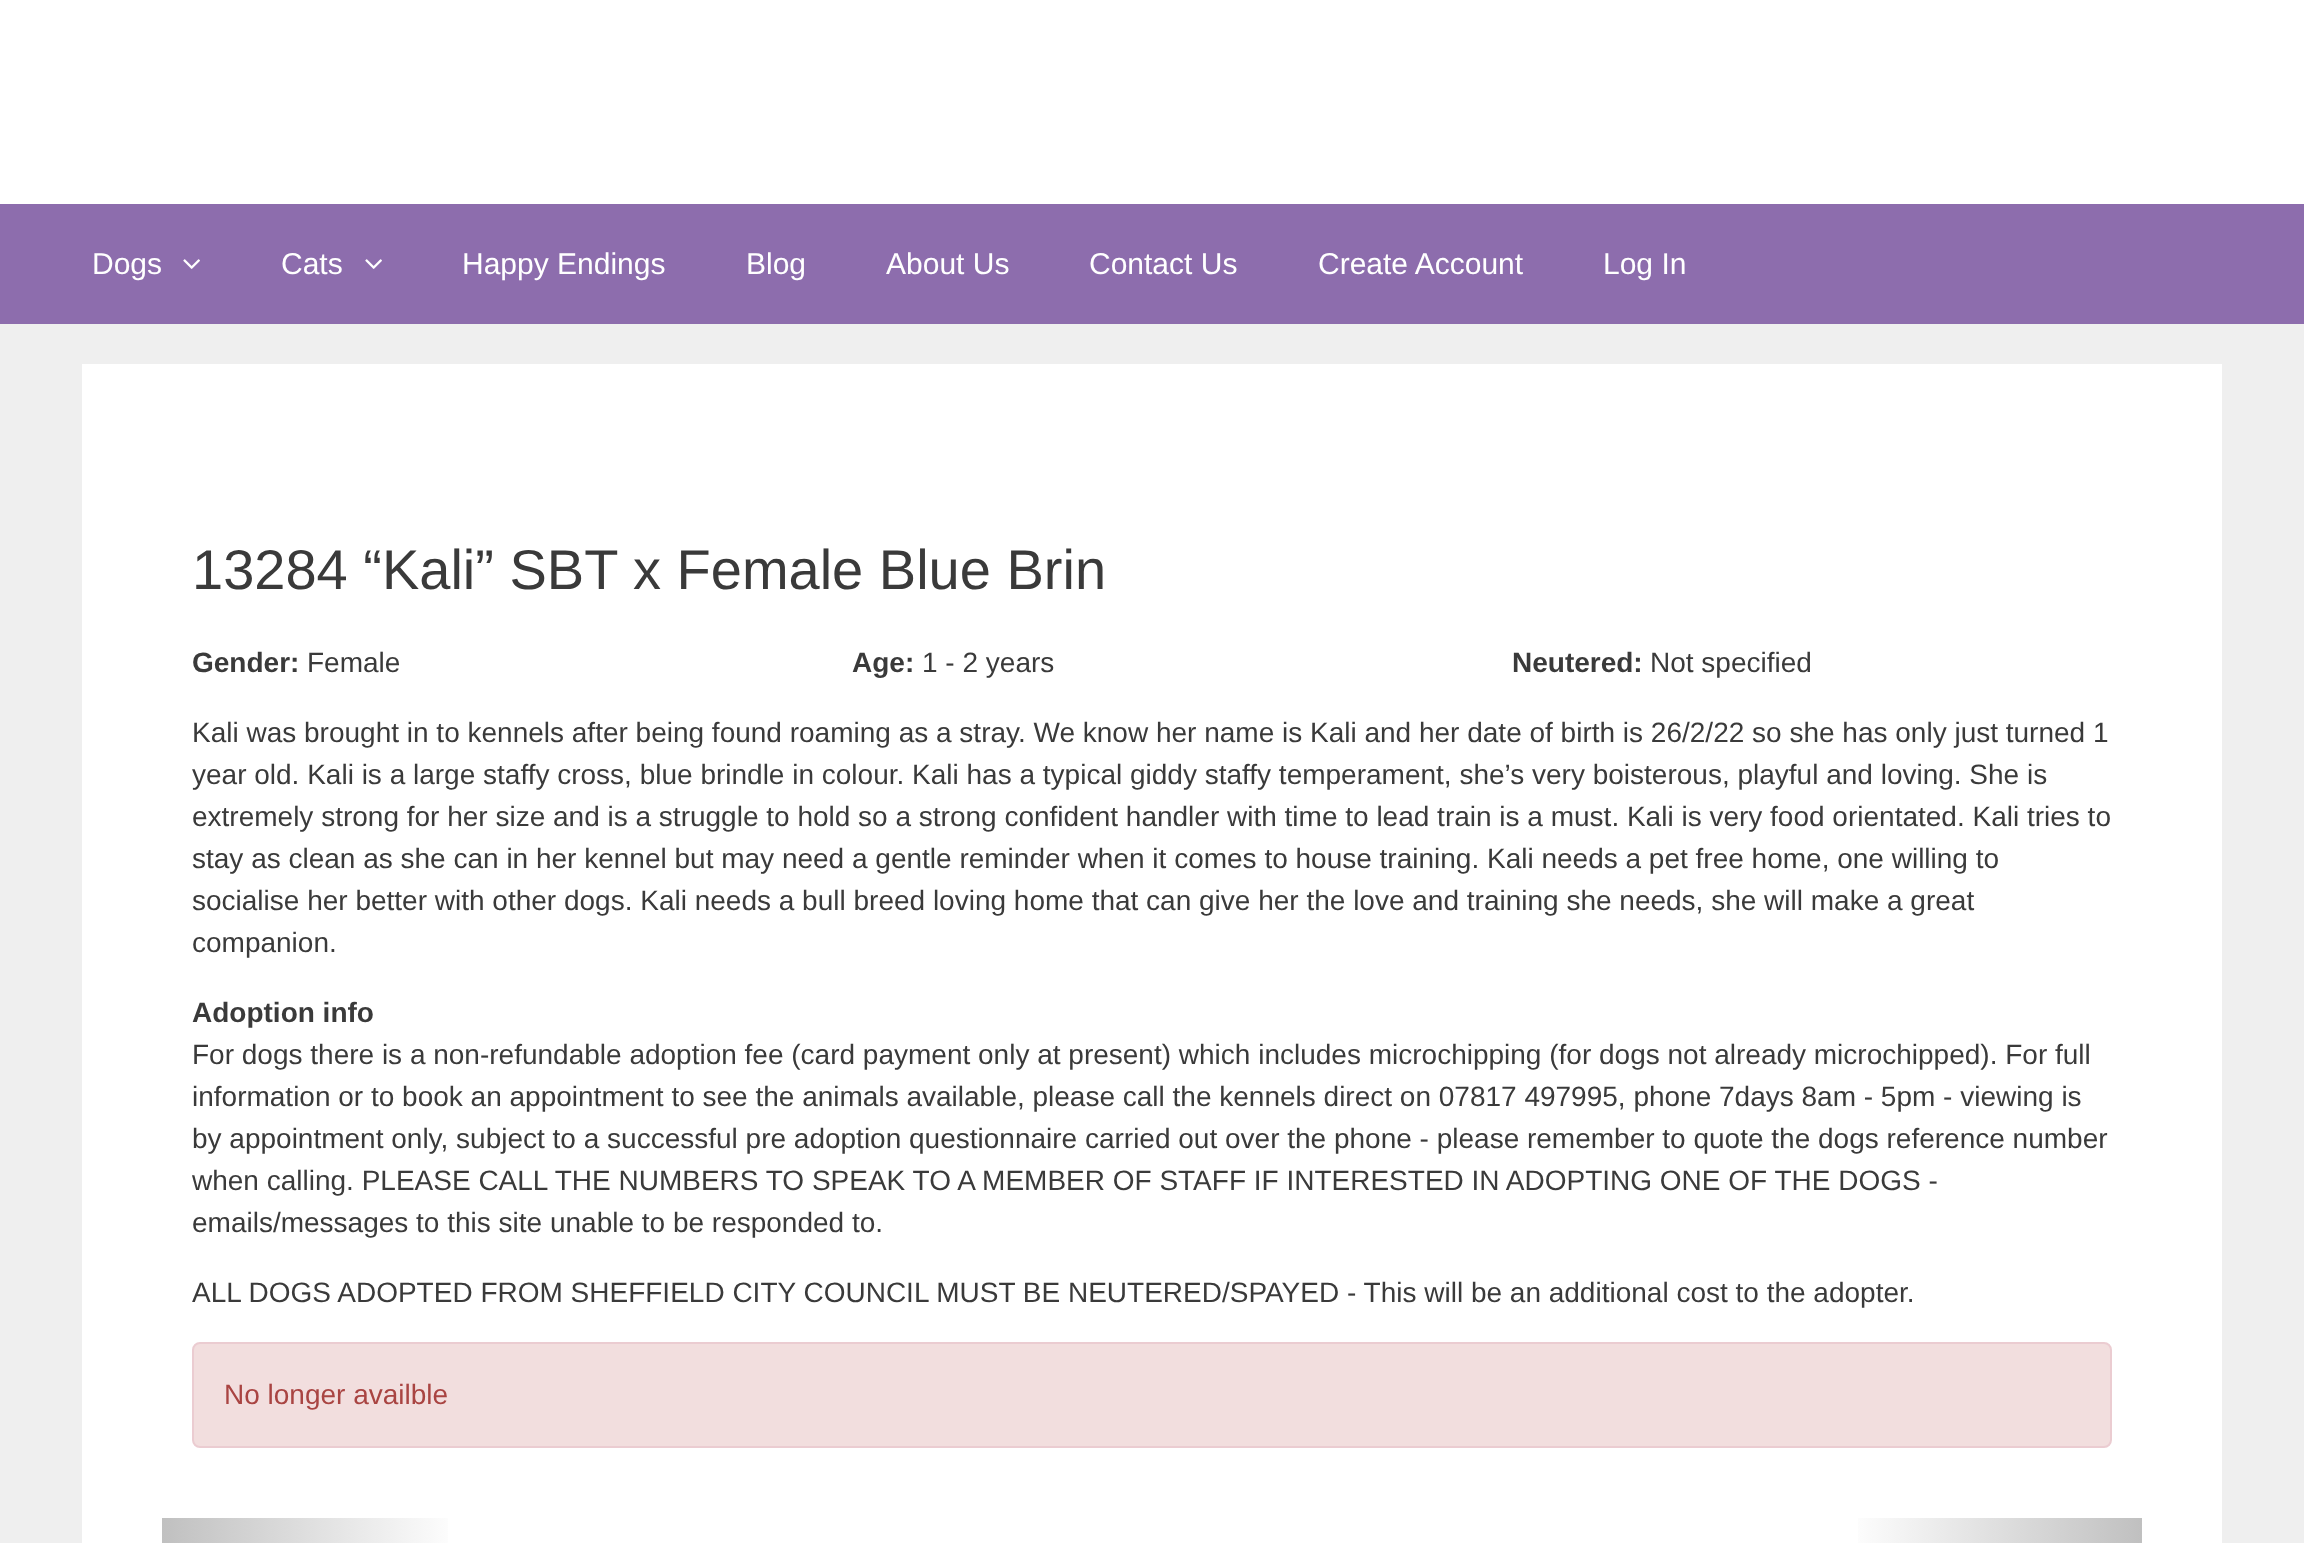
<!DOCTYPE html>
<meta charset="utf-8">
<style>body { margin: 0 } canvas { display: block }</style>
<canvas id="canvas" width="2304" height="1543"></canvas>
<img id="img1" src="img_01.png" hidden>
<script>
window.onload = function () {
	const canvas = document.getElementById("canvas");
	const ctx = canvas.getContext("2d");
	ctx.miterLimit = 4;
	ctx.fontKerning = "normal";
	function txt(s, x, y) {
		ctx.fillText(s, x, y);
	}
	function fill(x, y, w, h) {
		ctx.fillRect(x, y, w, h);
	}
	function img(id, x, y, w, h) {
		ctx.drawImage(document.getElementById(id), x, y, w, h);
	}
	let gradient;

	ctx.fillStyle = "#EFEFEF";
	fill(0, 0, 2304, 1543);
	ctx.fillStyle = "#FFFFFF";
	fill(0, 0, 2304, 204);
	ctx.fillStyle = "#8D6DAD";
	fill(0, 204, 2304, 120);
	img("img1", 183, 259, 17, 10);
	img("img1", 365, 259, 17, 10);
	ctx.fillStyle = "#FFFFFF";
	fill(82, 364, 2140, 1179);
	ctx.fillStyle = "#F2DEDE";
	ctx.beginPath();
	ctx.roundRect(193, 1343, 1918, 104, 7);
	ctx.fill();
	ctx.strokeStyle = "#EBCCD1";
	ctx.lineWidth = 2;
	ctx.stroke();
	gradient = ctx.createLinearGradient(162, 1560, 460, 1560);
	gradient.addColorStop(0, "#C0C0C0");
	gradient.addColorStop(1, "#FFFFFF");
	ctx.fillStyle = gradient;
	fill(162, 1518, 286, 25);
	gradient = ctx.createLinearGradient(1846, 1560, 2142, 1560);
	gradient.addColorStop(0, "#FFFFFF");
	gradient.addColorStop(1, "#C0C0C0");
	ctx.fillStyle = gradient;
	fill(1858, 1518, 284, 25);
	ctx.font = "30px Liberation Sans";
	ctx.fillStyle = "#FFFFFF";
	txt("Dogs", 92, 274);
	txt("Cats", 281, 274);
	txt("Happy Endings", 462, 274);
	txt("Blog", 746, 274);
	txt("About Us", 886, 274);
	txt("Contact Us", 1089, 274);
	txt("Create Account", 1318, 274);
	txt("Log In", 1603, 274);
	ctx.font = "56px Liberation Sans";
	ctx.fillStyle = "#3A3A3A";
	txt("13284 “Kali” SBT x Female Blue Brin", 192, 589);
	ctx.font = "bold 28px Liberation Sans";
	txt("Gender:", 192, 672);
	ctx.font = "28px Liberation Sans";
	txt("Female", 307, 672);
	ctx.font = "bold 28px Liberation Sans";
	txt("Age:", 852, 672);
	ctx.font = "28px Liberation Sans";
	txt("1 - 2 years", 922, 672);
	ctx.font = "bold 28px Liberation Sans";
	txt("Neutered:", 1512, 672);
	ctx.font = "28px Liberation Sans";
	txt("Not specified", 1650, 672);
	txt("Kali was brought in to kennels after being found roaming as a stray. We know her name is Kali and her date of birth is 26/2/22 so she has only just turned 1", 192, 742);
	txt("year old. Kali is a large staffy cross, blue brindle in colour. Kali has a typical giddy staffy temperament, she’s very boisterous, playful and loving. She is", 192, 784);
	txt("extremely strong for her size and is a struggle to hold so a strong confident handler with time to lead train is a must. Kali is very food orientated. Kali tries to", 192, 826);
	txt("stay as clean as she can in her kennel but may need a gentle reminder when it comes to house training. Kali needs a pet free home, one willing to", 192, 868);
	txt("socialise her better with other dogs. Kali needs a bull breed loving home that can give her the love and training she needs, she will make a great", 192, 910);
	txt("companion.", 192, 952);
	ctx.font = "bold 28px Liberation Sans";
	txt("Adoption info", 192, 1022);
	ctx.font = "28px Liberation Sans";
	txt("For dogs there is a non-refundable adoption fee (card payment only at present) which includes microchipping (for dogs not already microchipped). For full", 192, 1064);
	txt("information or to book an appointment to see the animals available, please call the kennels direct on 07817 497995, phone 7days 8am - 5pm - viewing is", 192, 1106);
	txt("by appointment only, subject to a successful pre adoption questionnaire carried out over the phone - please remember to quote the dogs reference number", 192, 1148);
	txt("when calling. PLEASE CALL THE NUMBERS TO SPEAK TO A MEMBER OF STAFF IF INTERESTED IN ADOPTING ONE OF THE DOGS -", 192, 1190);
	txt("emails/messages to this site unable to be responded to.", 192, 1232);
	txt("ALL DOGS ADOPTED FROM SHEFFIELD CITY COUNCIL MUST BE NEUTERED/SPAYED - This will be an additional cost to the adopter.", 192, 1302);
	ctx.fillStyle = "#A94442";
	txt("No longer availble", 224, 1404);
};
</script>
